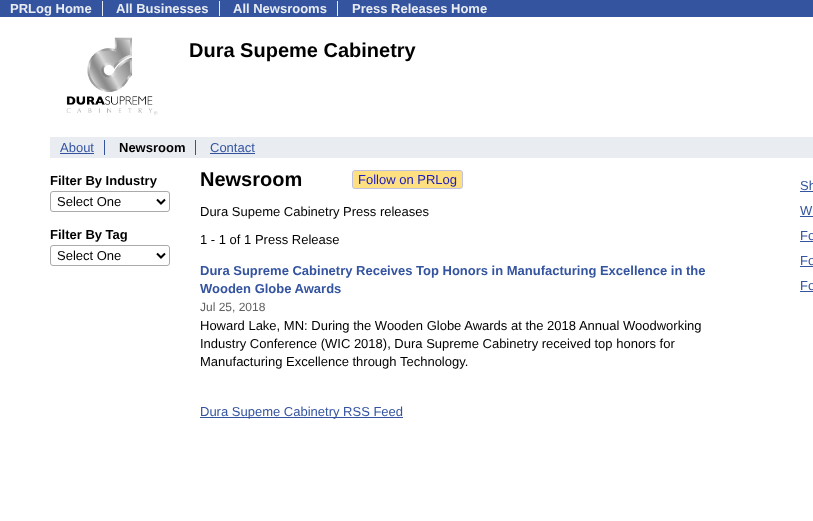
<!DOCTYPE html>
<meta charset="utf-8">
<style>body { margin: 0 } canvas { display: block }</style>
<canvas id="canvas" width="813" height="521"></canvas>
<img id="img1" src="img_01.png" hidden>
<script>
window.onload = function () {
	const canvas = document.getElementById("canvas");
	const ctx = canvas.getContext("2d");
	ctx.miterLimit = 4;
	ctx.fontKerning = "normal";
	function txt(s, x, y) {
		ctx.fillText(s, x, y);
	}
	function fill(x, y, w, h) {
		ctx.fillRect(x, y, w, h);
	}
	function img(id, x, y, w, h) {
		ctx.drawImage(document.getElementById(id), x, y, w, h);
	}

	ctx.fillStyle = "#FFFFFF";
	fill(0, 0, 813, 521);
	ctx.fillStyle = "#3454A0";
	fill(0, 0, 813, 17);
	ctx.fillStyle = "#E9EDF2";
	fill(102, 1, 1, 15);
	fill(219, 1, 1, 15);
	fill(337, 1, 1, 15);
	img("img1", 66, 37, 92, 78);
	fill(50, 137, 763, 21);
	ctx.fillStyle = "#3454A0";
	fill(104, 140, 1, 15);
	fill(60, 153, 34, 1);
	fill(195, 140, 1, 15);
	fill(210, 153, 45, 1);
	ctx.beginPath();
	ctx.roundRect(50.5, 191.5, 119, 20, 2.5);
	ctx.strokeStyle = "#AAAAAA";
	ctx.stroke();
	ctx.beginPath();
	ctx.moveTo(157, 199.5);
	ctx.lineTo(161, 203.5);
	ctx.lineTo(165, 199.5);
	ctx.strokeStyle = "#000000";
	ctx.lineWidth = 2;
	ctx.stroke();
	ctx.beginPath();
	ctx.roundRect(50.5, 245.5, 119, 20, 2.5);
	ctx.strokeStyle = "#AAAAAA";
	ctx.lineWidth = 1;
	ctx.stroke();
	ctx.beginPath();
	ctx.moveTo(157, 253.5);
	ctx.lineTo(161, 257.5);
	ctx.lineTo(165, 253.5);
	ctx.strokeStyle = "#000000";
	ctx.lineWidth = 2;
	ctx.stroke();
	ctx.fillStyle = "#FFE080";
	ctx.beginPath();
	ctx.roundRect(352.5, 170.5, 110, 18, 2.5);
	ctx.fill();
	ctx.strokeStyle = "#C0C0E0";
	ctx.lineWidth = 1;
	ctx.stroke();
	ctx.fillStyle = "#3454A0";
	fill(200, 417, 203, 1);
	fill(800, 191, 13, 1);
	fill(800, 216, 13, 1);
	fill(800, 241, 13, 1);
	fill(800, 266, 13, 1);
	fill(800, 291, 13, 1);
	ctx.font = "bold 13px Liberation Sans";
	ctx.fillStyle = "#E9EDF2";
	txt("PRLog Home", 10, 13);
	txt("All Businesses", 116, 13);
	txt("All Newsrooms", 233, 13);
	txt("Press Releases Home", 352, 13);
	ctx.font = "bold 20px Liberation Sans";
	ctx.fillStyle = "#000000";
	txt("Dura Supeme Cabinetry", 189, 57);
	ctx.font = "13px Liberation Sans";
	ctx.fillStyle = "#3454A0";
	txt("About", 60, 152);
	ctx.font = "bold 13px Liberation Sans";
	ctx.fillStyle = "#000000";
	txt("Newsroom", 119, 152);
	ctx.font = "13px Liberation Sans";
	ctx.fillStyle = "#3454A0";
	txt("Contact", 210, 152);
	ctx.font = "bold 13px Liberation Sans";
	ctx.fillStyle = "#000000";
	txt("Filter By Industry", 50, 185);
	ctx.font = "13px Liberation Sans";
	txt("Select One", 57, 206);
	ctx.font = "bold 13px Liberation Sans";
	txt("Filter By Tag", 50, 239);
	ctx.font = "13px Liberation Sans";
	txt("Select One", 57, 260);
	ctx.font = "bold 20px Liberation Sans";
	txt("Newsroom", 200, 186);
	ctx.font = "13px Liberation Sans";
	ctx.fillStyle = "#2020C0";
	txt("Follow on PRLog", 358, 184);
	ctx.fillStyle = "#000000";
	txt("Dura Supeme Cabinetry Press releases", 200, 216);
	txt("1 - 1 of 1 Press Release", 200, 244);
	ctx.font = "bold 13px Liberation Sans";
	ctx.fillStyle = "#3454A0";
	txt("Dura Supreme Cabinetry Receives Top Honors in Manufacturing Excellence in the", 200, 275);
	txt("Wooden Globe Awards", 200, 293);
	ctx.font = "12px Liberation Sans";
	ctx.fillStyle = "#606060";
	txt("Jul 25, 2018", 200, 311);
	ctx.font = "13px Liberation Sans";
	ctx.fillStyle = "#000000";
	txt("Howard Lake, MN: During the Wooden Globe Awards at the 2018 Annual Woodworking", 200, 330);
	txt("Industry Conference (WIC 2018), Dura Supreme Cabinetry received top honors for", 200, 348);
	txt("Manufacturing Excellence through Technology.", 200, 366);
	ctx.fillStyle = "#3454A0";
	txt("Dura Supeme Cabinetry RSS Feed", 200, 416);
	txt("Sh", 800, 190);
	txt("W", 800, 215);
	txt("Fo", 800, 240);
	txt("Fo", 800, 265);
	txt("Fo", 800, 290);
};
</script>
